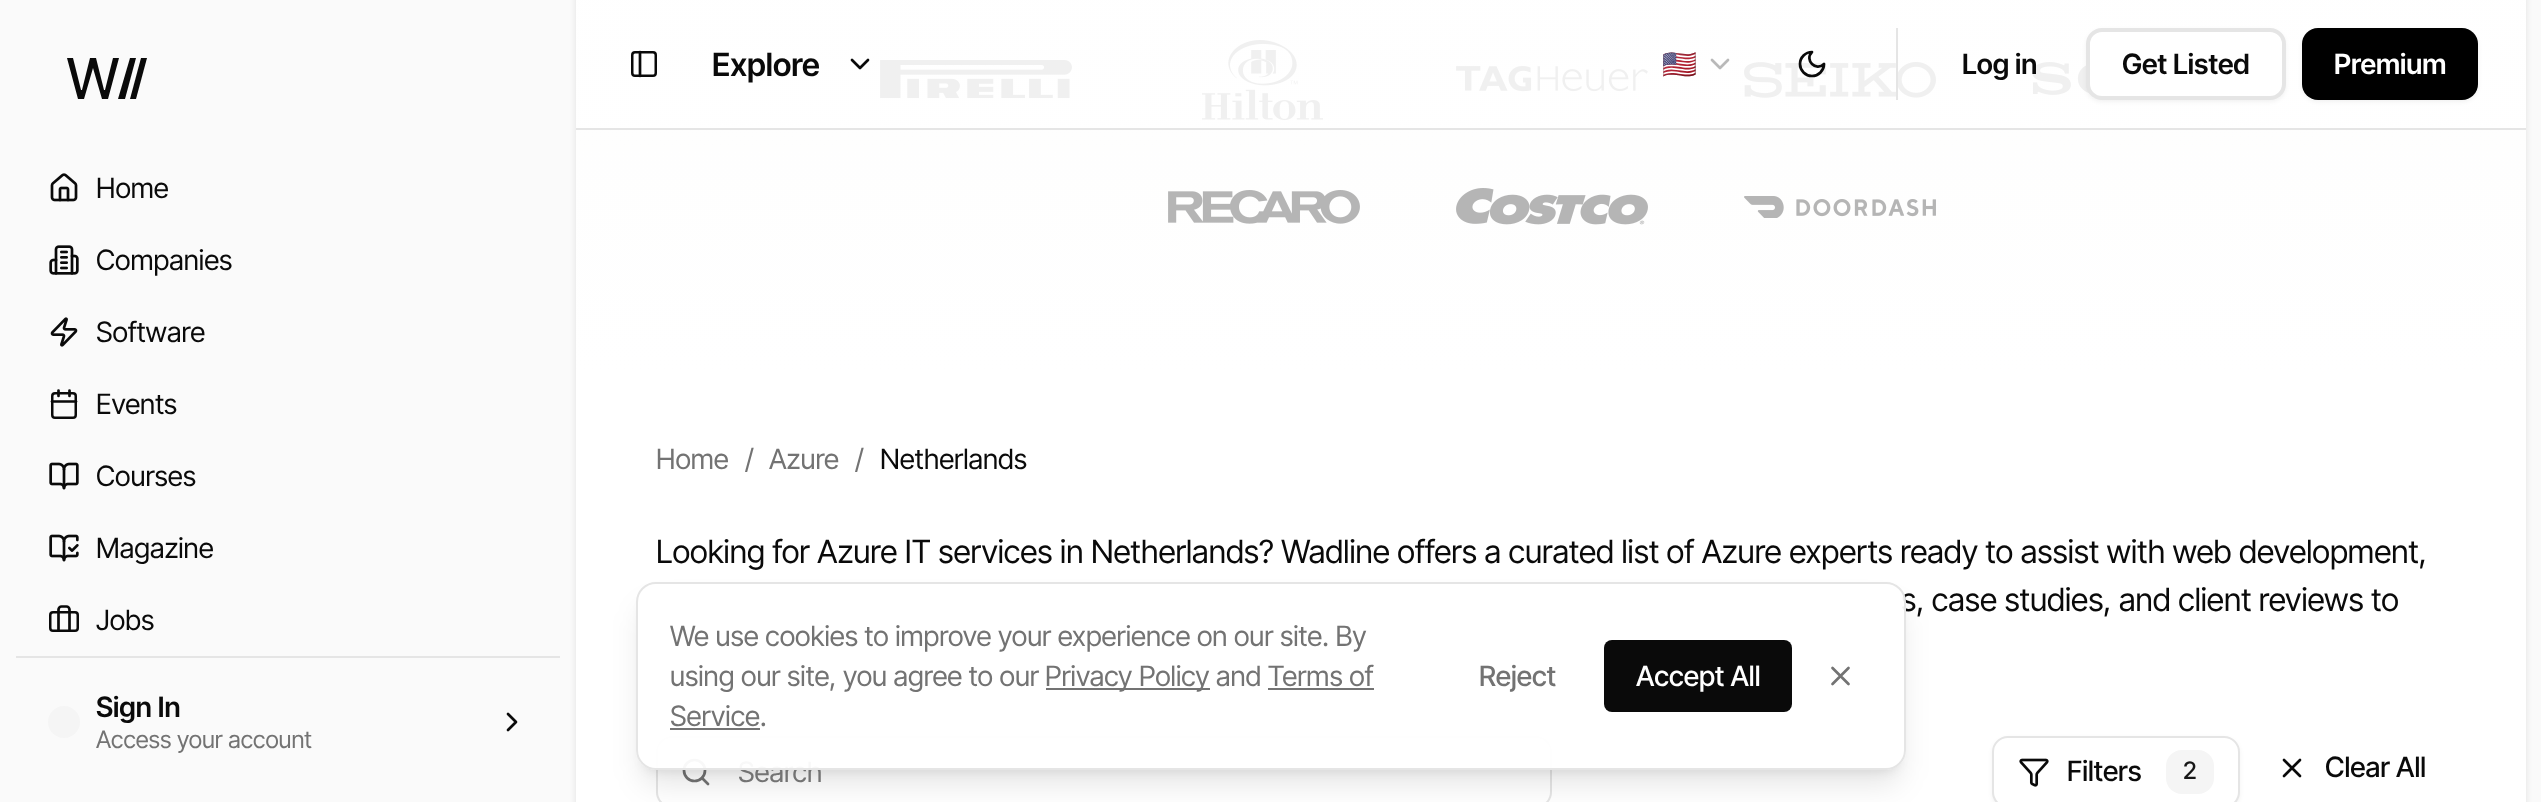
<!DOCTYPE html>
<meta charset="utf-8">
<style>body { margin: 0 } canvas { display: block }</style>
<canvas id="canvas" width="2541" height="802"></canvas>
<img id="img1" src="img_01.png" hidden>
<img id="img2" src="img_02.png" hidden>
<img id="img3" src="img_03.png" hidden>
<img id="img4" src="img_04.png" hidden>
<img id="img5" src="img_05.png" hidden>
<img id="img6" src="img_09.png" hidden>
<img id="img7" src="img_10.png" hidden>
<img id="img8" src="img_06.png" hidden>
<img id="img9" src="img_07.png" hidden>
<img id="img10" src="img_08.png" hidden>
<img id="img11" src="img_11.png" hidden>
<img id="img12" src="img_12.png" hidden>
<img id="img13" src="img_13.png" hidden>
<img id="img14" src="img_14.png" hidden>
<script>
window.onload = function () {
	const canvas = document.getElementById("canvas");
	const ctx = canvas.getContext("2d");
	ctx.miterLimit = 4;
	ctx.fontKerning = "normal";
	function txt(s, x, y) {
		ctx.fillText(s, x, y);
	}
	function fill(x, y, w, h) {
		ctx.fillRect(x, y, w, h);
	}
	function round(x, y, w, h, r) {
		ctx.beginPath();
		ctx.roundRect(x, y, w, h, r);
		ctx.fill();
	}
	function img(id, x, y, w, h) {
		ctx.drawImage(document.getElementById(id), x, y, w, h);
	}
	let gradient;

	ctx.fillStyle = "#FAFAFA";
	fill(0, 0, 2541, 802);
	ctx.fillStyle = "#0A0A0A";
	ctx.beginPath();
	ctx.moveTo(78, 99);
	ctx.lineTo(67, 58);
	ctx.lineTo(73, 58);
	ctx.lineTo(81, 90);
	ctx.lineTo(82, 90);
	ctx.lineTo(90, 58);
	ctx.lineTo(96, 58);
	ctx.lineTo(104, 90);
	ctx.lineTo(105, 90);
	ctx.lineTo(113, 58);
	ctx.lineTo(119, 58);
	ctx.lineTo(108, 99);
	ctx.lineTo(102, 99);
	ctx.lineTo(93, 68);
	ctx.lineTo(84, 99);
	ctx.closePath();
	ctx.fill();
	ctx.beginPath();
	ctx.moveTo(136, 58);
	ctx.lineTo(130, 58);
	ctx.lineTo(118, 99);
	ctx.lineTo(125, 99);
	ctx.closePath();
	ctx.fill();
	ctx.beginPath();
	ctx.moveTo(147, 58);
	ctx.lineTo(141, 58);
	ctx.lineTo(130, 99);
	ctx.lineTo(136, 99);
	ctx.closePath();
	ctx.fill();
	img("img1", 50, 173, 28, 29);
	img("img2", 49, 245, 30, 30);
	img("img3", 50, 317, 28, 30);
	ctx.beginPath();
	ctx.moveTo(58.5, 390.5);
	ctx.lineTo(58.5, 396);
	ctx.moveTo(69.5, 390.5);
	ctx.lineTo(69.5, 396);
	ctx.strokeStyle = "#0A0A0A";
	ctx.lineWidth = 2.7;
	ctx.lineCap = "round";
	ctx.lineJoin = "round";
	ctx.stroke();
	ctx.beginPath();
	ctx.roundRect(52.25, 393.25, 23.5, 24.5, 2.75);
	ctx.lineWidth = 2.5;
	ctx.lineJoin = "miter";
	ctx.stroke();
	ctx.beginPath();
	ctx.moveTo(52, 401.5);
	ctx.lineTo(76, 401.5);
	ctx.lineWidth = 2.7;
	ctx.lineJoin = "round";
	ctx.stroke();
	img("img4", 49, 462, 30, 28);
	img("img5", 49, 534, 30, 28);
	ctx.beginPath();
	ctx.moveTo(69.5, 630.5);
	ctx.lineTo(69.5, 609.5);
	ctx.bezierCurveTo(69.5, 608, 68, 606.5, 66.5, 606.5);
	ctx.lineTo(61.5, 606.5);
	ctx.bezierCurveTo(60, 606.5, 58.5, 608, 58.5, 609.5);
	ctx.lineTo(58.5, 630.5);
	ctx.stroke();
	ctx.beginPath();
	ctx.roundRect(50.25, 612.25, 27.5, 18.5, 2.75);
	ctx.lineWidth = 2.5;
	ctx.lineJoin = "miter";
	ctx.stroke();
	ctx.fillStyle = "#E5E5E5";
	fill(16, 656, 544, 2);
	ctx.fillStyle = "#F5F5F5";
	ctx.beginPath();
	ctx.arc(64, 722, 16, 0, Math.PI * 2);
	ctx.fill();
	ctx.beginPath();
	ctx.moveTo(508, 730);
	ctx.lineTo(516, 722);
	ctx.lineTo(508, 714);
	ctx.lineWidth = 2.7;
	ctx.lineJoin = "round";
	ctx.stroke();
	ctx.fillStyle = "rgba(0, 0, 0, 0.1)";
	ctx.filter = "blur(3px)";
	ctx.beginPath();
	ctx.roundRect(576, -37, 1950, 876, 28);
	ctx.fill();
	ctx.filter = "none";
	ctx.fillStyle = "#FFFFFF";
	fill(576, 376, 1950, 426);
	ctx.fillStyle = "#E5E5E5";
	fill(576, 128, 1950, 2);
	gradient = ctx.createLinearGradient(1551, -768, 1551, 376);
	gradient.addColorStop(0, "#FEFEFE");
	gradient.addColorStop(1, "#FFFFFF");
	ctx.fillStyle = gradient;
	fill(576, 0, 1950, 128);
	ctx.beginPath();
	ctx.roundRect(632.25, 52.25, 23.5, 23.5, 2.75);
	ctx.lineWidth = 2.5;
	ctx.lineJoin = "miter";
	ctx.stroke();
	ctx.beginPath();
	ctx.moveTo(640, 52);
	ctx.lineTo(640, 76);
	ctx.lineWidth = 2.7;
	ctx.lineJoin = "round";
	ctx.stroke();
	ctx.beginPath();
	ctx.moveTo(852, 60);
	ctx.lineTo(860, 68);
	ctx.lineTo(868, 60);
	ctx.stroke();
	ctx.beginPath();
	ctx.moveTo(1712, 60);
	ctx.lineTo(1720, 68);
	ctx.lineTo(1728, 60);
	ctx.strokeStyle = "#B9B9B9";
	ctx.stroke();
	img("img6", 1744, 62, 192, 36);
	ctx.beginPath();
	ctx.moveTo(1812, 52);
	ctx.bezierCurveTo(1804, 60, 1816, 72, 1824, 64);
	ctx.bezierCurveTo(1824, 70.5, 1818.5, 76, 1812, 76);
	ctx.bezierCurveTo(1805.5, 76, 1800, 70.5, 1800, 64);
	ctx.bezierCurveTo(1800, 57.5, 1805.5, 52, 1812, 52);
	ctx.closePath();
	ctx.strokeStyle = "#0A0A0A";
	ctx.stroke();
	ctx.fillStyle = "#E5E5E5";
	fill(1896, 28, 2, 72);
	img("img7", 2032, 62, 58, 33);
	ctx.fillStyle = "rgba(0, 0, 0, 0.05)";
	ctx.filter = "blur(2px)";
	ctx.beginPath();
	ctx.roundRect(2086, 30, 200, 72, 16);
	ctx.fill();
	ctx.filter = "none";
	ctx.fillStyle = "#FFFFFF";
	ctx.beginPath();
	ctx.roundRect(2088, 30, 196, 68, 14);
	ctx.fill();
	ctx.strokeStyle = "#E5E5E5";
	ctx.lineWidth = 4;
	ctx.lineJoin = "miter";
	ctx.stroke();
	ctx.fillStyle = "rgba(0, 0, 0, 0.05)";
	ctx.filter = "blur(2px)";
	ctx.beginPath();
	ctx.roundRect(2302, 30, 176, 72, 16);
	ctx.fill();
	ctx.filter = "none";
	ctx.fillStyle = "#000000";
	round(2302, 28, 176, 72, 16);
	gradient = ctx.createLinearGradient(1551, -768, 1551, 376);
	gradient.addColorStop(0, "#FAFAF9");
	gradient.addColorStop(1, "#FFFFFF");
	ctx.fillStyle = gradient;
	fill(576, 130, 1950, 246);
	img("img8", 880, 60, 192, 38);
	img("img9", 1202, 40, 121, 80);
	img("img10", 1456, 66, 192, 26);
	img("img11", 1168, 190, 192, 34);
	img("img12", 1456, 188, 192, 37);
	img("img13", 1744, 196, 192, 22);
	ctx.beginPath();
	ctx.roundRect(657, 737, 894, 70, 15);
	ctx.lineWidth = 2;
	ctx.stroke();
	ctx.beginPath();
	ctx.moveTo(708, 784);
	ctx.lineTo(702, 778);
	ctx.strokeStyle = "#737373";
	ctx.lineWidth = 2.7;
	ctx.lineJoin = "round";
	ctx.stroke();
	ctx.beginPath();
	ctx.arc(694.5, 770.5, 10.5, 0, Math.PI * 2);
	ctx.stroke();
	ctx.fillStyle = "rgba(0, 0, 0, 0.05)";
	ctx.filter = "blur(2px)";
	ctx.beginPath();
	ctx.roundRect(1992, 738, 248, 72, 16);
	ctx.fill();
	ctx.filter = "none";
	ctx.fillStyle = "#FFFFFF";
	ctx.beginPath();
	ctx.roundRect(1993, 737, 246, 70, 15);
	ctx.fill();
	ctx.strokeStyle = "#E5E5E5";
	ctx.lineWidth = 2;
	ctx.lineJoin = "miter";
	ctx.stroke();
	img("img14", 2019, 758, 30, 29);
	ctx.fillStyle = "#F5F5F5";
	round(2166, 750, 48, 44, 16);
	ctx.beginPath();
	ctx.moveTo(2300, 760);
	ctx.lineTo(2284, 776);
	ctx.moveTo(2284, 760);
	ctx.lineTo(2300, 776);
	ctx.strokeStyle = "#0A0A0A";
	ctx.lineWidth = 2.7;
	ctx.lineJoin = "round";
	ctx.stroke();
	ctx.save();
	ctx.beginPath();
	ctx.moveTo(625, 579);
	ctx.lineTo(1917, 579);
	ctx.lineTo(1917, 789);
	ctx.lineTo(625, 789);
	ctx.closePath();
	ctx.moveTo(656, 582);
	ctx.lineTo(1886, 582);
	ctx.bezierCurveTo(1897, 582, 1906, 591, 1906, 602);
	ctx.lineTo(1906, 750);
	ctx.bezierCurveTo(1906, 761, 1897, 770, 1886, 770);
	ctx.lineTo(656, 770);
	ctx.bezierCurveTo(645, 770, 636, 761, 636, 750);
	ctx.lineTo(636, 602);
	ctx.bezierCurveTo(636, 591, 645, 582, 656, 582);
	ctx.closePath();
	ctx.clip("evenodd");
	ctx.fillStyle = "rgba(0, 0, 0, 0.1)";
	ctx.filter = "blur(6px)";
	ctx.beginPath();
	ctx.roundRect(644, 598, 1254, 172, 12);
	ctx.fill();
	ctx.filter = "none";
	ctx.restore();
	ctx.save();
	ctx.beginPath();
	ctx.moveTo(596, 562);
	ctx.lineTo(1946, 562);
	ctx.lineTo(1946, 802);
	ctx.lineTo(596, 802);
	ctx.closePath();
	ctx.moveTo(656, 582);
	ctx.lineTo(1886, 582);
	ctx.bezierCurveTo(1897, 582, 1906, 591, 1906, 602);
	ctx.lineTo(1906, 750);
	ctx.bezierCurveTo(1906, 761, 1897, 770, 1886, 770);
	ctx.lineTo(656, 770);
	ctx.bezierCurveTo(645, 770, 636, 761, 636, 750);
	ctx.lineTo(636, 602);
	ctx.bezierCurveTo(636, 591, 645, 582, 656, 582);
	ctx.closePath();
	ctx.clip("evenodd");
	ctx.fillStyle = "rgba(0, 0, 0, 0.1)";
	ctx.filter = "blur(15px)";
	ctx.beginPath();
	ctx.roundRect(642, 608, 1258, 176, 14);
	ctx.fill();
	ctx.filter = "none";
	ctx.restore();
	ctx.font = "28px Inter Tight";
	ctx.fillStyle = "#0A0A0A";
	txt("Home", 96, 198);
	txt("Companies", 96, 270);
	txt("Software", 96, 342);
	txt("Events", 96, 414);
	txt("Courses", 96, 486);
	txt("Magazine", 96, 558);
	txt("Jobs", 96, 630);
	ctx.font = "600 28px Inter Tight";
	txt("Sign In", 96, 717);
	ctx.font = "24px Inter Tight";
	ctx.fillStyle = "#737373";
	txt("Access your account", 96, 748);
	ctx.font = "600 32px Inter Tight";
	ctx.fillStyle = "#0A0A0A";
	txt("Explore", 712, 76);
	ctx.save();
	ctx.beginPath();
	ctx.rect(1662, 44, 34, 40);
	ctx.clip();
	ctx.font = "28px Noto Color Emoji";
	txt("🇺🇸", 1662, 74);
	ctx.restore();
	ctx.font = "600 28px Inter Tight";
	txt("Log in", 1962, 74);
	txt("Get Listed", 2122, 74);
	ctx.fillStyle = "#FFFFFF";
	txt("Premium", 2334, 74);
	ctx.font = "28px Inter Tight";
	ctx.fillStyle = "#737373";
	txt("Home", 656, 469);
	txt("/", 745, 469);
	txt("Azure", 769, 469);
	txt("/", 855, 469);
	ctx.fillStyle = "#0A0A0A";
	txt("Netherlands", 880, 469);
	ctx.font = "32px Inter Tight";
	txt("Looking for Azure IT services in Netherlands? Wadline offers a curated list of Azure experts ready to assist with web development,", 656, 563);
	txt("s, case studies, and client reviews to", 1901, 611);
	ctx.font = "28px Inter Tight";
	ctx.fillStyle = "#737373";
	txt("Search", 738, 782);
	ctx.font = "500 28px Inter Tight";
	ctx.fillStyle = "#0A0A0A";
	txt("Filters", 2067, 781);
	ctx.font = "500 24px Inter Tight";
	ctx.fillStyle = "#171717";
	txt("2", 2183, 779);
	ctx.font = "500 28px Inter Tight";
	ctx.fillStyle = "#0A0A0A";
	txt("Clear All", 2325, 777);
	ctx.fillStyle = "rgba(255, 255, 255, 0.95)";
	ctx.beginPath();
	ctx.roundRect(637, 583, 1268, 186, 19);
	ctx.fill();
	ctx.strokeStyle = "#E5E5E5";
	ctx.lineWidth = 2;
	ctx.lineJoin = "miter";
	ctx.stroke();
	ctx.font = "28px Inter Tight";
	ctx.fillStyle = "#737373";
	txt("We use cookies to improve your experience on our site. By", 670, 646);
	txt("using our site, you agree to our", 670, 686);
	fill(1046, 688, 164, 2);
	txt("Privacy Policy and Terms of", 1045, 686);
	txt("Service.", 670, 726);
	fill(1268, 688, 106, 2);
	fill(670, 728, 90, 2);
	ctx.font = "500 28px Inter Tight";
	txt("Reject", 1479, 686);
	ctx.fillStyle = "#0A0A0A";
	round(1604, 640, 188, 72, 8);
	ctx.fillStyle = "#FFFFFF";
	txt("Accept All", 1636, 686);
	ctx.beginPath();
	ctx.moveTo(1848.5, 668);
	ctx.lineTo(1832.5, 684);
	ctx.moveTo(1832.5, 668);
	ctx.lineTo(1848.5, 684);
	ctx.strokeStyle = "#737373";
	ctx.lineWidth = 2.7;
	ctx.lineJoin = "round";
	ctx.stroke();
};
</script>
